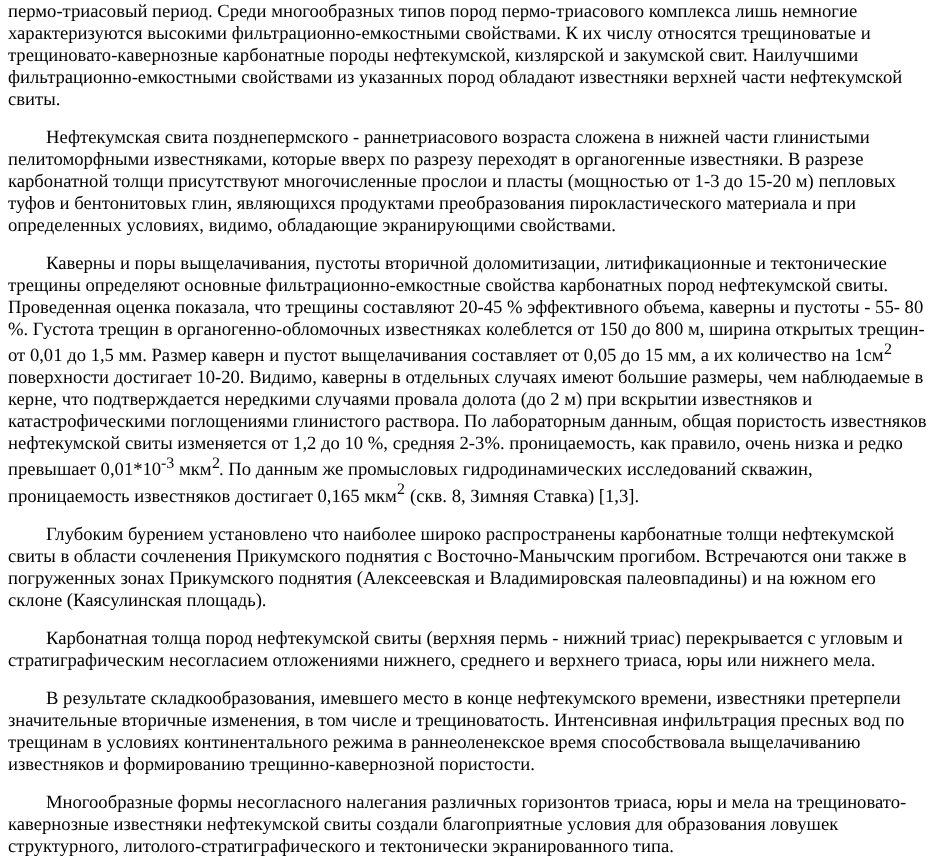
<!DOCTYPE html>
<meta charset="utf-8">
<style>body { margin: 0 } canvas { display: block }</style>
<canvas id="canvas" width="943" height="857"></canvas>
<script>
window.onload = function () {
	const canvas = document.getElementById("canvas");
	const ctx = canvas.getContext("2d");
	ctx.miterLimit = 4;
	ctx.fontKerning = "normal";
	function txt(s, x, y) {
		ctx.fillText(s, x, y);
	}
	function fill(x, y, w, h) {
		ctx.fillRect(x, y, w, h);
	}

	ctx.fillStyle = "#FFFFFF";
	fill(0, 0, 943, 857);
	ctx.font = "18.65px Liberation Serif";
	ctx.fillStyle = "#000000";
	txt("пермо-триасовый период. Среди многообразных типов пород пермо-триасового комплекса лишь немногие", 8, 17);
	txt("характеризуются высокими фильтрационно-емкостными свойствами. К их числу относятся трещиноватые и", 8, 39);
	txt("трещиновато-кавернозные карбонатные породы нефтекумской, кизлярской и закумской свит. Наилучшими", 8, 61);
	txt("фильтрационно-емкостными свойствами из указанных пород обладают известняки верхней части нефтекумской", 8, 83);
	txt("свиты.", 8, 105);
	txt("Нефтекумская свита позднепермского - раннетриасового возраста сложена в нижней части глинистыми", 46, 143);
	txt("пелитоморфными известняками, которые вверх по разрезу переходят в органогенные известняки. В разрезе", 8, 165);
	txt("карбонатной толщи присутствуют многочисленные прослои и пласты (мощностью от 1-3 до 15-20 м) пепловых", 8, 187);
	txt("туфов и бентонитовых глин, являющихся продуктами преобразования пирокластического материала и при", 8, 209);
	txt("определенных условиях, видимо, обладающие экранирующими свойствами.", 8, 231);
	txt("Каверны и поры выщелачивания, пустоты вторичной доломитизации, литификационные и тектонические", 46, 269);
	txt("трещины определяют основные фильтрационно-емкостные свойства карбонатных пород нефтекумской свиты.", 8, 291);
	txt("Проведенная оценка показала, что трещины составляют 20-45 % эффективного объема, каверны и пустоты - 55- 80", 8, 313);
	txt("%. Густота трещин в органогенно-обломочных известняках колеблется от 150 до 800 м, ширина открытых трещин-", 8, 335);
	txt("от 0,01 до 1,5 мм. Размер каверн и пустот выщелачивания составляет от 0,05 до 15 мм, а их количество на 1см", 8, 361);
	ctx.font = "16px Liberation Serif";
	txt("2", 884, 354);
	ctx.font = "18.65px Liberation Serif";
	txt("поверхности достигает 10-20. Видимо, каверны в отдельных случаях имеют большие размеры, чем наблюдаемые в", 8, 383);
	txt("керне, что подтверждается нередкими случаями провала долота (до 2 м) при вскрытии известняков и", 8, 405);
	txt("катастрофическими поглощениями глинистого раствора. По лабораторным данным, общая пористость известняков", 8, 427);
	txt("нефтекумской свиты изменяется от 1,2 до 10 %, средняя 2-3%. проницаемость, как правило, очень низка и редко", 8, 449);
	txt("превышает 0,01*10", 8, 475);
	ctx.font = "16px Liberation Serif";
	txt("-3", 161, 468);
	ctx.font = "18.65px Liberation Serif";
	txt("мкм", 179, 475);
	ctx.font = "16px Liberation Serif";
	txt("2", 212, 468);
	ctx.font = "18.65px Liberation Serif";
	txt(". По данным же промысловых гидродинамических исследований скважин,", 219, 475);
	txt("проницаемость известняков достигает 0,165 мкм", 8, 502);
	ctx.font = "16px Liberation Serif";
	txt("2", 397, 494);
	ctx.font = "18.65px Liberation Serif";
	txt("(скв. 8, Зимняя Ставка) [1,3].", 410, 502);
	txt("Глубоким бурением установлено что наиболее широко распространены карбонатные толщи нефтекумской", 46, 540);
	txt("свиты в области сочленения Прикумского поднятия с Восточно-Манычским прогибом. Встречаются они также в", 8, 562);
	txt("погруженных зонах Прикумского поднятия (Алексеевская и Владимировская палеовпадины) и на южном его", 8, 584);
	txt("склоне (Каясулинская площадь).", 8, 606);
	txt("Карбонатная толща пород нефтекумской свиты (верхняя пермь - нижний триас) перекрывается с угловым и", 46, 644);
	txt("стратиграфическим несогласием отложениями нижнего, среднего и верхнего триаса, юры или нижнего мела.", 8, 666);
	txt("В результате складкообразования, имевшего место в конце нефтекумского времени, известняки претерпели", 46, 704);
	txt("значительные вторичные изменения, в том числе и трещиноватость. Интенсивная инфильтрация пресных вод по", 8, 726);
	txt("трещинам в условиях континентального режима в раннеоленекское время способствовала выщелачиванию", 8, 748);
	txt("известняков и формированию трещинно-кавернозной пористости.", 8, 770);
	txt("Многообразные формы несогласного налегания различных горизонтов триаса, юры и мела на трещиновато-", 46, 808);
	txt("кавернозные известняки нефтекумской свиты создали благоприятные условия для образования ловушек", 8, 830);
	txt("структурного, литолого-стратиграфического и тектонически экранированного типа.", 8, 852);
};
</script>
